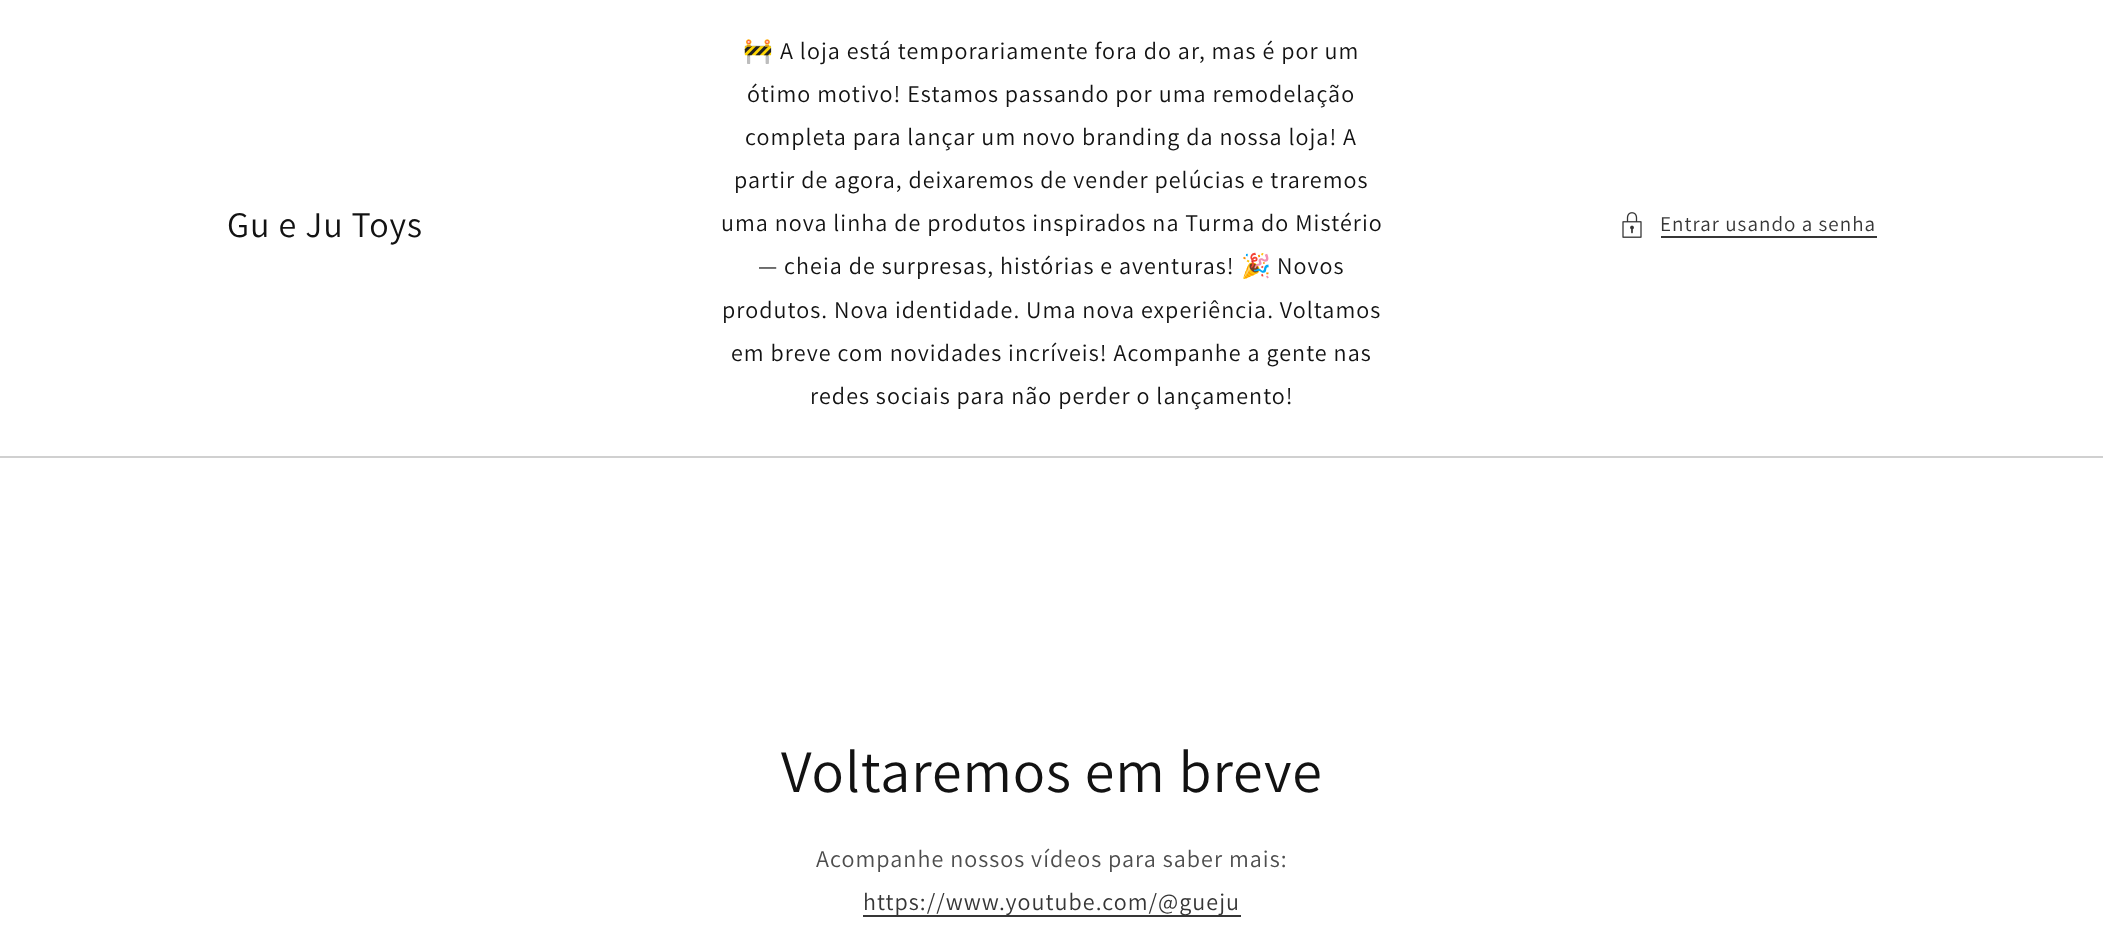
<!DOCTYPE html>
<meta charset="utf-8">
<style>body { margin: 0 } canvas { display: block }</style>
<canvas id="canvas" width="2103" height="927"></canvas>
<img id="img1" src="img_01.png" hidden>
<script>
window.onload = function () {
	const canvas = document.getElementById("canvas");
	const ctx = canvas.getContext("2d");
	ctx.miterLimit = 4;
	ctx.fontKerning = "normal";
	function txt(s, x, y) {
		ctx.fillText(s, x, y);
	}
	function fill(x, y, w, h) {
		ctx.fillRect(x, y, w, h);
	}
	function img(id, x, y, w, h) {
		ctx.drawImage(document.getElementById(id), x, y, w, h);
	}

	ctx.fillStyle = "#FFFFFF";
	fill(0, 0, 2103, 927);
	img("img1", 1622, 212, 20, 26);
	ctx.fillStyle = "#363636";
	fill(1661, 236, 216, 2);
	ctx.fillStyle = "#D0D0D0";
	fill(0, 456, 2103, 2);
	ctx.fillStyle = "#363636";
	fill(863, 915, 378, 2);
	ctx.letterSpacing = "0.9px";
	ctx.font = "36px Assistant";
	ctx.fillStyle = "#121212";
	txt("Gu e Ju Toys", 227, 237);
	ctx.letterSpacing = "1.05px";
	ctx.font = "24px Noto Color Emoji";
	txt("🚧", 743, 59);
	ctx.font = "24px Assistant";
	txt("A loja está temporariamente fora do ar, mas é por um", 780, 59);
	txt("ótimo motivo! Estamos passando por uma remodelação", 747, 102);
	txt("completa para lançar um novo branding da nossa loja! A", 745, 145);
	txt("partir de agora, deixaremos de vender pelúcias e traremos", 734, 188);
	txt("uma nova linha de produtos inspirados na Turma do Mistério", 721, 231);
	txt("— cheia de surpresas, histórias e aventuras!", 758, 274);
	ctx.font = "24px Noto Color Emoji";
	txt("🎉", 1241, 274);
	ctx.font = "24px Assistant";
	txt("Novos", 1277, 274);
	txt("produtos. Nova identidade. Uma nova experiência. Voltamos", 722, 318);
	txt("em breve com novidades incríveis! Acompanhe a gente nas", 731, 361);
	txt("redes sociais para não perder o lançamento!", 810, 404);
	ctx.font = "21px Assistant";
	ctx.fillStyle = "#363636";
	txt("Entrar usando a senha", 1660, 231);
	ctx.letterSpacing = "0.9px";
	ctx.font = "60px Assistant";
	ctx.fillStyle = "#121212";
	txt("Voltaremos em breve", 781, 792);
	ctx.letterSpacing = "1.05px";
	ctx.font = "24px Assistant";
	ctx.fillStyle = "#4D4D4D";
	txt("Acompanhe nossos vídeos para saber mais:", 816, 867);
	ctx.fillStyle = "#363636";
	txt("https://www.youtube.com/@gueju", 863, 910);
};
</script>
